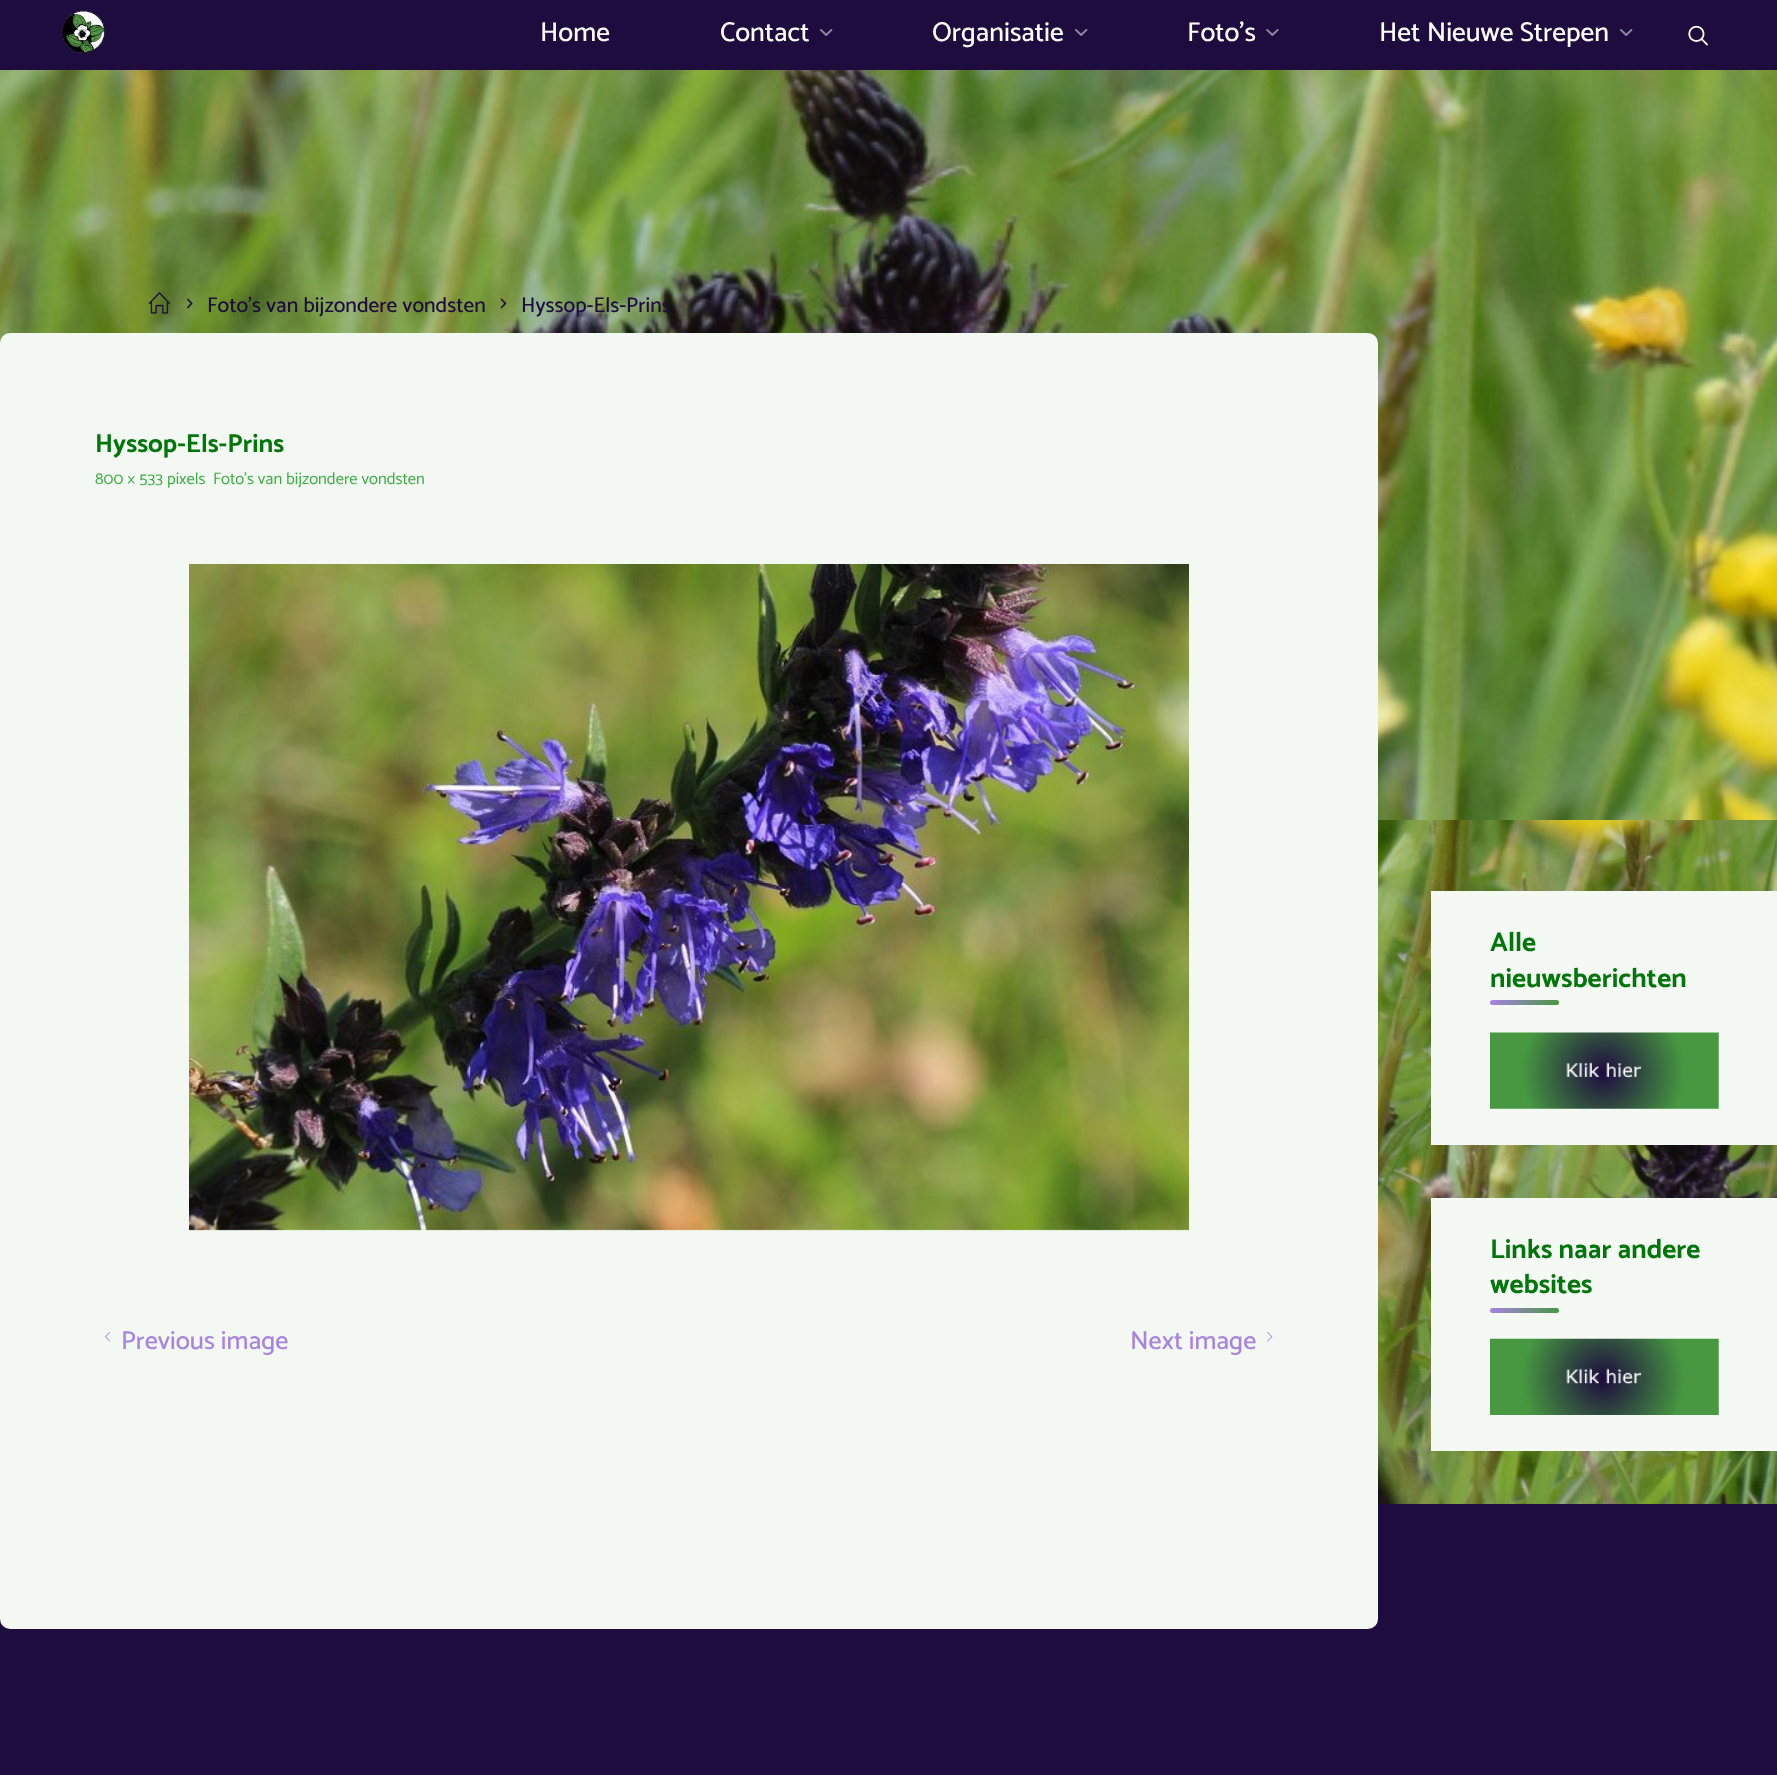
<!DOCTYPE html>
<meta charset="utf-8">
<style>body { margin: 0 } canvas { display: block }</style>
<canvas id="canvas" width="1777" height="1775"></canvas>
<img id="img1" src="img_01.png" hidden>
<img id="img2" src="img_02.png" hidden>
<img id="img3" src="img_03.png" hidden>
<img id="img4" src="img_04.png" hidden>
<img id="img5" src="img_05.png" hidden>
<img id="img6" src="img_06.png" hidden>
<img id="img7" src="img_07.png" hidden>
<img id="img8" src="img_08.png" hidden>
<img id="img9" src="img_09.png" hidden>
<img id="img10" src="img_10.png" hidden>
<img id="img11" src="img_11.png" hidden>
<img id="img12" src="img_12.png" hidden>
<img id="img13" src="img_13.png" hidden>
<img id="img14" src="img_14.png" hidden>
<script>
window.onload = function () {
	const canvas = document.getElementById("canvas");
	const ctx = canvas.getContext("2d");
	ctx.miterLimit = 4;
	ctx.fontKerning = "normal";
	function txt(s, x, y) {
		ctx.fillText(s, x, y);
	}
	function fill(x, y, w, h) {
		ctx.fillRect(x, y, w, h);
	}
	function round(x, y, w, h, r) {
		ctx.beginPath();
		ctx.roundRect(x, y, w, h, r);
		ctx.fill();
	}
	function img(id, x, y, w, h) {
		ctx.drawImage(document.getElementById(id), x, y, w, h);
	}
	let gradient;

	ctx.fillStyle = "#FFFFFF";
	fill(0, 0, 1777, 1775);
	img("img1", 1378, 820, 399, 684);
	ctx.fillStyle = "#1E0C3F";
	fill(0, 0, 1777, 70);
	img("img2", 62, 10, 43, 43);
	img("img3", 819, 29, 14, 7);
	img("img3", 1074, 29, 14, 7);
	img("img4", 1266, 29, 13, 7);
	img("img3", 1619, 29, 14, 7);
	img("img5", 1688, 25, 20, 21);
	img("img6", 0, 70, 1777, 750);
	img("img7", 148, 292, 23, 22);
	img("img8", 187, 298, 6, 11);
	img("img9", 500, 298, 7, 11);
	fill(0, 1504, 1777, 271);
	ctx.fillStyle = "#F3F9F2";
	round(0, 333, 1378, 1296, 10);
	img("img10", 189, 564, 1000, 667);
	img("img11", 105, 1332, 6, 10);
	img("img12", 1267, 1332, 6, 10);
	ctx.fillStyle = "#F5F9F4";
	fill(1431, 891, 346, 254);
	gradient = ctx.createLinearGradient(1490, 1003, 1559, 1003);
	gradient.addColorStop(0, "#A883E2");
	gradient.addColorStop(1, "#479841");
	ctx.fillStyle = gradient;
	round(1490, 1000, 69, 5, 2.5);
	img("img13", 1490, 1032, 229, 77);
	ctx.fillStyle = "#F5F9F4";
	fill(1431, 1198, 346, 253);
	gradient = ctx.createLinearGradient(1490, 1310, 1559, 1310);
	gradient.addColorStop(0, "#A883E2");
	gradient.addColorStop(1, "#479841");
	ctx.fillStyle = gradient;
	round(1490, 1308, 69, 5, 2.5);
	img("img14", 1490, 1338, 229, 77);
	ctx.font = "500 27.25px Catamaran";
	ctx.fillStyle = "#FFFFFF";
	txt("Home", 540, 41);
	txt("Contact", 720, 41);
	txt("Organisatie", 932, 41);
	txt("Foto’s", 1187, 41);
	txt("Het Nieuwe Strepen", 1379, 41);
	ctx.font = "500 21.4px Catamaran";
	ctx.fillStyle = "#1E0C3F";
	txt("Foto's van bijzondere vondsten", 207, 312);
	txt("Hyssop-Els-Prins", 521, 312);
	ctx.font = "bold 26px Catamaran";
	ctx.fillStyle = "#02750B";
	txt("Hyssop-Els-Prins", 95, 452);
	ctx.font = "16.6px Catamaran";
	ctx.fillStyle = "#39AC42";
	txt("800 × 533", 95, 484);
	txt("pixels", 167, 484);
	txt("Foto’s van bijzondere vondsten", 213, 484);
	ctx.font = "500 26px Catamaran";
	ctx.fillStyle = "#A883E2";
	txt("Previous image", 121, 1349);
	txt("Next image", 1130, 1349);
	ctx.font = "bold 27.25px Catamaran";
	ctx.fillStyle = "#02750B";
	txt("Alle", 1490, 951);
	txt("nieuwsberichten", 1490, 987);
	txt("Links naar andere", 1490, 1258);
	txt("websites", 1490, 1293);
};
</script>
